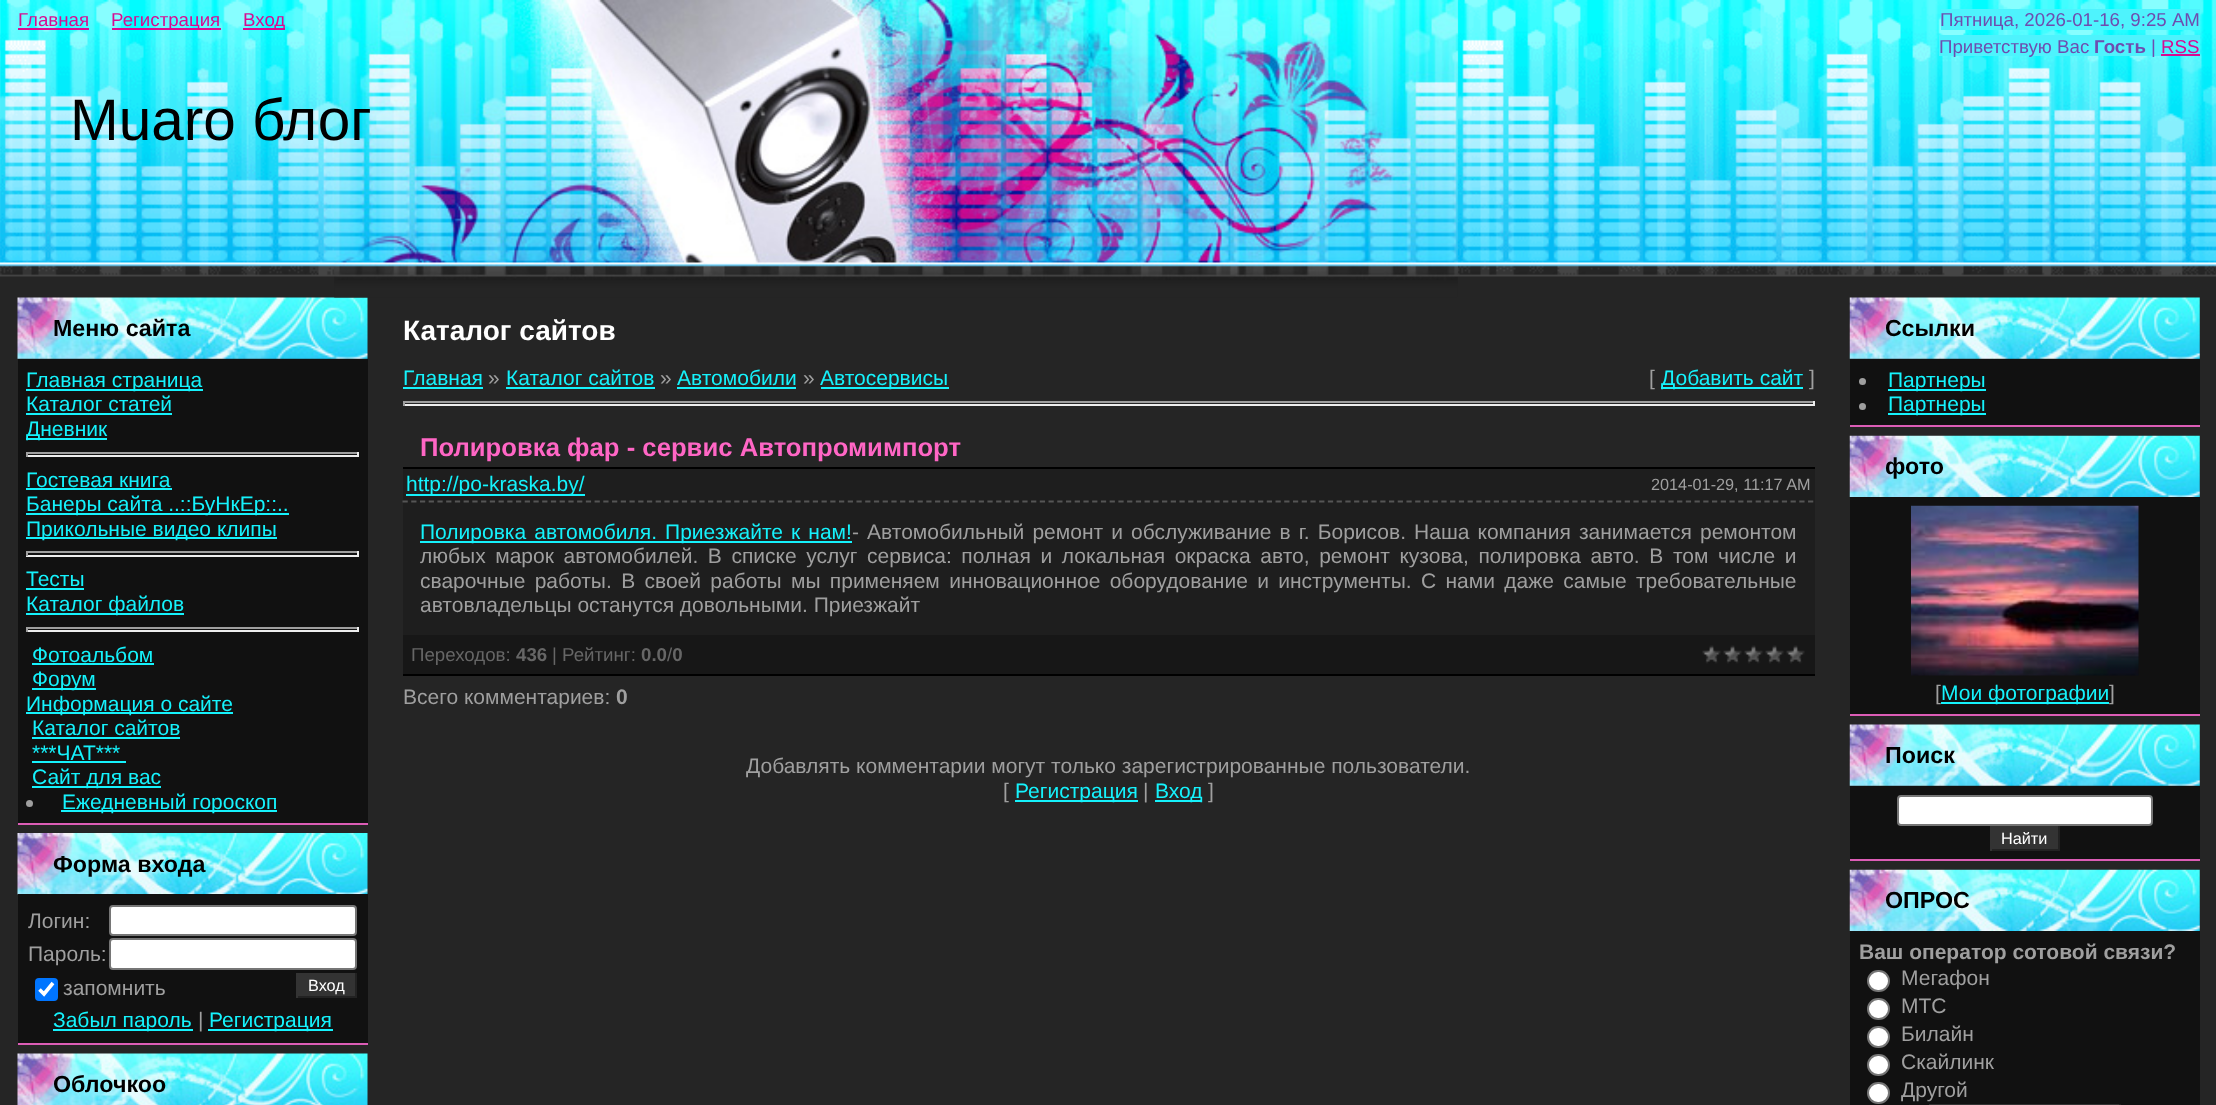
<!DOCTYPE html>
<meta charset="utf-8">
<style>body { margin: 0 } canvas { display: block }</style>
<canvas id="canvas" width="2216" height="1105"></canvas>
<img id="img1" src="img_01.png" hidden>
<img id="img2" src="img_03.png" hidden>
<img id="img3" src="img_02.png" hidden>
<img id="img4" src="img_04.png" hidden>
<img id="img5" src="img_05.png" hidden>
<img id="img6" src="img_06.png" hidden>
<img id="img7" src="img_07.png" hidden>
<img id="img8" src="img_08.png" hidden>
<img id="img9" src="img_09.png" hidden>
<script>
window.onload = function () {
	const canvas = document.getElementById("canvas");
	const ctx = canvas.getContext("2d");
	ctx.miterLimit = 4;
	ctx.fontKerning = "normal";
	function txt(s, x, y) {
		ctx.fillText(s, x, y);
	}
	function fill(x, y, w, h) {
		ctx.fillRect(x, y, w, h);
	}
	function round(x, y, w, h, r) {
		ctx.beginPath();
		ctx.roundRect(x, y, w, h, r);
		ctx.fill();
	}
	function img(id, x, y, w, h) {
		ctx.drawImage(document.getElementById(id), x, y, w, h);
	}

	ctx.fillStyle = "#252525";
	fill(0, 0, 2216, 1105);
	img("img1", 0, 0, 2216, 277);
	img("img2", 17, 297, 351, 62);
	img("img3", 334, 0, 1124, 298);
	ctx.fillStyle = "#D80B91";
	fill(18, 28, 71, 2);
	fill(112, 28, 109, 2);
	fill(243, 28, 42, 2);
	ctx.fillStyle = "#4EF3FD";
	fill(1941, 9, 259, 21);
	fill(1939, 35, 261, 21);
	ctx.fillStyle = "#D80B91";
	fill(2161, 54, 39, 2);
	ctx.fillStyle = "#DC5DB6";
	fill(18, 823, 350, 2);
	ctx.fillStyle = "#111111";
	fill(18, 359, 350, 464);
	ctx.fillStyle = "#15F2FC";
	fill(26, 389, 177, 2);
	fill(26, 413, 146, 2);
	fill(26, 438, 81, 2);
	ctx.fillStyle = "#9F9F9F";
	fill(26, 452, 333, 2);
	ctx.fillStyle = "#EEEEEE";
	fill(357, 452, 2, 5);
	fill(26, 455, 333, 2);
	ctx.fillStyle = "#9F9F9F";
	fill(26, 452, 2, 5);
	ctx.fillStyle = "#15F2FC";
	fill(26, 488, 146, 2);
	fill(26, 513, 263, 2);
	fill(26, 537, 251, 2);
	ctx.fillStyle = "#9F9F9F";
	fill(26, 551, 333, 2);
	ctx.fillStyle = "#EEEEEE";
	fill(357, 551, 2, 5);
	fill(26, 555, 333, 2);
	ctx.fillStyle = "#9F9F9F";
	fill(26, 551, 2, 5);
	ctx.fillStyle = "#15F2FC";
	fill(26, 588, 58, 2);
	fill(26, 613, 158, 2);
	ctx.fillStyle = "#9F9F9F";
	fill(26, 627, 333, 2);
	ctx.fillStyle = "#EEEEEE";
	fill(357, 627, 2, 5);
	fill(26, 630, 333, 2);
	ctx.fillStyle = "#9F9F9F";
	fill(26, 627, 2, 5);
	ctx.fillStyle = "#15F2FC";
	fill(32, 663, 122, 2);
	fill(32, 688, 64, 2);
	fill(26, 712, 207, 2);
	fill(32, 737, 148, 2);
	fill(32, 761, 94, 2);
	fill(32, 786, 129, 2);
	ctx.fillStyle = "#9F9F9F";
	ctx.beginPath();
	ctx.arc(29.5, 803.5, 3.5, 0, Math.PI * 2);
	ctx.fill();
	ctx.fillStyle = "#15F2FC";
	fill(61, 810, 216, 2);
	ctx.fillStyle = "#DC5DB6";
	fill(18, 1043, 350, 2);
	img("img4", 17, 833, 351, 62);
	ctx.fillStyle = "#111111";
	fill(18, 894, 350, 149);
	ctx.fillStyle = "#FFFFFF";
	ctx.beginPath();
	ctx.roundRect(110, 906, 246, 29, 3);
	ctx.fill();
	ctx.strokeStyle = "#767676";
	ctx.lineWidth = 2;
	ctx.stroke();
	ctx.beginPath();
	ctx.roundRect(110, 939, 246, 30, 3);
	ctx.fill();
	ctx.stroke();
	ctx.fillStyle = "#0075FF";
	round(35, 978, 23, 23, 4);
	ctx.beginPath();
	ctx.moveTo(39.5, 989.5);
	ctx.lineTo(44, 994);
	ctx.lineTo(53, 983);
	ctx.strokeStyle = "#FFFFFF";
	ctx.lineWidth = 3.6;
	ctx.stroke();
	ctx.fillStyle = "#333333";
	fill(298, 973, 57, 23);
	ctx.fillStyle = "#222222";
	fill(355, 973, 2, 25);
	fill(296, 996, 61, 2);
	ctx.fillStyle = "#333333";
	fill(296, 973, 2, 25);
	ctx.fillStyle = "#15F2FC";
	fill(53, 1029, 140, 2);
	fill(208, 1029, 125, 2);
	img("img5", 17, 1053, 351, 52);
	fill(403, 387, 80, 2);
	fill(506, 387, 149, 2);
	fill(677, 387, 119, 2);
	fill(821, 387, 128, 2);
	fill(1661, 387, 142, 2);
	ctx.fillStyle = "#9F9F9F";
	fill(403, 401, 1412, 2);
	ctx.fillStyle = "#EEEEEE";
	fill(1813, 401, 2, 5);
	fill(403, 404, 1412, 2);
	ctx.fillStyle = "#9F9F9F";
	fill(403, 401, 2, 5);
	ctx.fillStyle = "#1E1E1E";
	fill(403, 469, 1412, 166);
	ctx.fillStyle = "#000000";
	fill(403, 467, 1412, 2);
	fill(403, 674, 1412, 2);
	ctx.fillStyle = "#15F2FC";
	fill(406, 494, 179, 2);
	ctx.beginPath();
	ctx.moveTo(402.5, 501.5);
	ctx.lineTo(1815, 501.5);
	ctx.strokeStyle = "#555555";
	ctx.lineWidth = 1.8;
	ctx.setLineDash([5.25, 3.48]);
	ctx.stroke();
	fill(420, 541, 432, 2);
	ctx.fillStyle = "#171717";
	fill(403, 635, 1412, 39);
	img("img6", 1702, 645, 103, 19);
	ctx.fillStyle = "#15F2FC";
	fill(1015, 800, 123, 2);
	fill(1155, 800, 47, 2);
	ctx.fillStyle = "#DC5DB6";
	fill(1850, 425, 350, 2);
	img("img7", 1849, 297, 351, 62);
	ctx.fillStyle = "#111111";
	fill(1850, 359, 350, 66);
	ctx.fillStyle = "#9F9F9F";
	ctx.beginPath();
	ctx.arc(1862.5, 381.5, 3.5, 0, Math.PI * 2);
	ctx.fill();
	ctx.fillStyle = "#15F2FC";
	fill(1888, 389, 98, 2);
	ctx.fillStyle = "#9F9F9F";
	ctx.beginPath();
	ctx.arc(1862.5, 406.5, 3.5, 0, Math.PI * 2);
	ctx.fill();
	ctx.fillStyle = "#15F2FC";
	fill(1888, 413, 98, 2);
	ctx.fillStyle = "#DC5DB6";
	fill(1850, 714, 350, 2);
	img("img8", 1849, 435, 351, 62);
	ctx.fillStyle = "#111111";
	fill(1850, 497, 350, 217);
	img("img9", 1911, 505, 228, 171);
	ctx.fillStyle = "#15F2FC";
	fill(1941, 702, 168, 2);
	ctx.fillStyle = "#DC5DB6";
	fill(1850, 859, 350, 2);
	img("img7", 1849, 724, 351, 62);
	ctx.fillStyle = "#111111";
	fill(1850, 786, 350, 73);
	ctx.fillStyle = "#FFFFFF";
	ctx.beginPath();
	ctx.roundRect(1898, 796, 254, 29, 3);
	ctx.fill();
	ctx.strokeStyle = "#767676";
	ctx.lineWidth = 2;
	ctx.setLineDash([]);
	ctx.stroke();
	ctx.fillStyle = "#333333";
	fill(1992, 826, 66, 23);
	ctx.fillStyle = "#222222";
	fill(2058, 826, 2, 25);
	fill(1990, 849, 70, 2);
	ctx.fillStyle = "#333333";
	fill(1990, 826, 2, 25);
	img("img8", 1849, 869, 351, 62);
	ctx.fillStyle = "#111111";
	fill(1850, 931, 350, 174);
	ctx.fillStyle = "#FFFFFF";
	ctx.beginPath();
	ctx.roundRect(1868, 971, 21, 20, 10);
	ctx.fill();
	ctx.stroke();
	ctx.beginPath();
	ctx.roundRect(1868, 999, 21, 20, 10);
	ctx.fill();
	ctx.stroke();
	ctx.beginPath();
	ctx.roundRect(1868, 1027, 21, 20, 10);
	ctx.fill();
	ctx.stroke();
	ctx.beginPath();
	ctx.roundRect(1868, 1055, 21, 20, 10);
	ctx.fill();
	ctx.stroke();
	ctx.beginPath();
	ctx.roundRect(1868, 1083, 21, 20, 10);
	ctx.fill();
	ctx.stroke();
	ctx.fillStyle = "#333333";
	fill(1929, 1104, 192, 1);
	ctx.fillStyle = "#222222";
	fill(2119, 1104, 2, 1);
	ctx.font = "18.7px Liberation Sans";
	ctx.fillStyle = "#D80B91";
	txt("Главная", 18, 26);
	txt("Регистрация", 111, 26);
	txt("Вход", 243, 26);
	ctx.fillStyle = "#6F4CAF";
	txt("Пятница, 2026-01-16, 9:25 AM", 1940, 26);
	txt("Приветствую Вас", 1939, 53);
	ctx.font = "bold 18.7px Liberation Sans";
	txt("Гость", 2094, 53);
	ctx.font = "18.7px Liberation Sans";
	txt("|", 2151, 53);
	ctx.fillStyle = "#D80B91";
	txt("RSS", 2161, 53);
	ctx.font = "58.5px Liberation Sans";
	ctx.fillStyle = "#000000";
	txt("Muaro блог", 70, 140);
	ctx.font = "bold 23.25px Liberation Sans";
	txt("Меню сайта", 53, 336);
	ctx.font = "21px Liberation Sans";
	ctx.fillStyle = "#15F2FC";
	txt("Главная страница", 26, 387);
	txt("Каталог статей", 26, 411);
	txt("Дневник", 26, 436);
	txt("Гостевая книга", 26, 487);
	txt("Банеры сайта ..::БуНкЕр::..", 26, 511);
	txt("Прикольные видео клипы", 26, 536);
	txt("Тесты", 26, 586);
	txt("Каталог файлов", 26, 611);
	txt("Фотоальбом", 32, 662);
	txt("Форум", 32, 686);
	txt("Информация о сайте", 26, 711);
	txt("Каталог сайтов", 32, 735);
	txt("***ЧАТ***", 32, 760);
	txt("Сайт для вас", 32, 784);
	txt("Ежедневный гороскоп", 62, 809);
	ctx.font = "bold 23.25px Liberation Sans";
	ctx.fillStyle = "#000000";
	txt("Форма входа", 53, 872);
	ctx.font = "21px Liberation Sans";
	ctx.fillStyle = "#9F9F9F";
	txt("Логин:", 28, 928);
	txt("Пароль:", 28, 961);
	txt("запомнить", 63, 995);
	ctx.font = "16.25px Liberation Sans";
	ctx.fillStyle = "#FFFFFF";
	txt("Вход", 308, 991);
	ctx.font = "21px Liberation Sans";
	ctx.fillStyle = "#15F2FC";
	txt("Забыл пароль", 53, 1027);
	ctx.fillStyle = "#9F9F9F";
	txt("|", 198, 1027);
	ctx.fillStyle = "#15F2FC";
	txt("Регистрация", 209, 1027);
	ctx.font = "bold 23.25px Liberation Sans";
	ctx.fillStyle = "#000000";
	txt("Облочкоо", 53, 1092);
	ctx.font = "bold 28px Liberation Sans";
	ctx.fillStyle = "#FFFFFF";
	txt("Каталог сайтов", 403, 340);
	ctx.font = "21px Liberation Sans";
	ctx.fillStyle = "#15F2FC";
	txt("Главная", 403, 385);
	ctx.fillStyle = "#9F9F9F";
	txt("»", 488, 385);
	ctx.fillStyle = "#15F2FC";
	txt("Каталог сайтов", 506, 385);
	ctx.fillStyle = "#9F9F9F";
	txt("»", 660, 385);
	ctx.fillStyle = "#15F2FC";
	txt("Автомобили", 677, 385);
	ctx.fillStyle = "#9F9F9F";
	txt("»", 803, 385);
	ctx.fillStyle = "#15F2FC";
	txt("Автосервисы", 820, 385);
	ctx.fillStyle = "#9F9F9F";
	txt("[", 1649, 385);
	ctx.fillStyle = "#15F2FC";
	txt("Добавить сайт", 1661, 385);
	ctx.fillStyle = "#9F9F9F";
	txt("]", 1809, 385);
	ctx.font = "bold 25.7px Liberation Sans";
	ctx.fillStyle = "#FF66C5";
	txt("Полировка фар - сервис Автопромимпорт", 420, 456);
	ctx.font = "21px Liberation Sans";
	ctx.fillStyle = "#15F2FC";
	txt("http://po-kraska.by/", 406, 491);
	ctx.font = "16.25px Liberation Sans";
	ctx.fillStyle = "#9F9F9F";
	txt("2014-01-29, 11:17 AM", 1651, 490);
	ctx.wordSpacing = "2.25px";
	ctx.font = "21px Liberation Sans";
	ctx.fillStyle = "#15F2FC";
	txt("Полировка автомобиля. Приезжайте к нам!", 420, 539);
	ctx.fillStyle = "#9F9F9F";
	txt("- Автомобильный ремонт и обслуживание в г. Борисов. Наша компания занимается ремонтом", 852, 539);
	ctx.wordSpacing = "3.75px";
	txt("любых марок автомобилей. В списке услуг сервиса: полная и локальная окраска авто, ремонт кузова, полировка авто. В том числе и", 420, 563);
	ctx.wordSpacing = "3.5px";
	txt("сварочные работы. В своей работы мы применяем инновационное оборудование и инструменты. С нами даже самые требовательные", 420, 588);
	ctx.wordSpacing = "0px";
	txt("автовладельцы останутся довольными. Приезжайт", 420, 612);
	ctx.font = "bold 18.7px Liberation Sans";
	ctx.fillStyle = "#666666";
	txt("436", 516, 661);
	ctx.font = "18.7px Liberation Sans";
	txt("| Рейтинг:", 552, 661);
	ctx.font = "bold 18.7px Liberation Sans";
	txt("0.0 0", 641, 661);
	ctx.font = "18.7px Liberation Sans";
	txt("Переходов:", 411, 661);
	txt("/", 667, 661);
	ctx.font = "21px Liberation Sans";
	ctx.fillStyle = "#9F9F9F";
	txt("Всего комментариев:", 403, 704);
	ctx.font = "bold 21px Liberation Sans";
	txt("0", 616, 704);
	ctx.font = "21px Liberation Sans";
	txt("Добавлять комментарии могут только зарегистрированные пользователи.", 746, 773);
	txt("[", 1003, 798);
	ctx.fillStyle = "#15F2FC";
	txt("Регистрация", 1015, 798);
	ctx.fillStyle = "#9F9F9F";
	txt("|", 1143, 798);
	ctx.fillStyle = "#15F2FC";
	txt("Вход", 1155, 798);
	ctx.fillStyle = "#9F9F9F";
	txt("]", 1208, 798);
	ctx.font = "bold 23.25px Liberation Sans";
	ctx.fillStyle = "#000000";
	txt("Ссылки", 1885, 336);
	ctx.font = "21px Liberation Sans";
	ctx.fillStyle = "#15F2FC";
	txt("Партнеры", 1888, 387);
	txt("Партнеры", 1888, 411);
	ctx.font = "bold 23.25px Liberation Sans";
	ctx.fillStyle = "#000000";
	txt("фото", 1885, 474);
	ctx.font = "21px Liberation Sans";
	ctx.fillStyle = "#9F9F9F";
	txt("[", 1935, 700);
	ctx.fillStyle = "#15F2FC";
	txt("Мои фотографии", 1941, 700);
	ctx.fillStyle = "#9F9F9F";
	txt("]", 2109, 700);
	ctx.font = "bold 23.25px Liberation Sans";
	ctx.fillStyle = "#000000";
	txt("Поиск", 1885, 763);
	ctx.font = "16.25px Liberation Sans";
	ctx.fillStyle = "#FFFFFF";
	txt("Найти", 2001, 844);
	ctx.font = "bold 23.25px Liberation Sans";
	ctx.fillStyle = "#000000";
	txt("ОПРОС", 1885, 908);
	ctx.font = "bold 21px Liberation Sans";
	ctx.fillStyle = "#9F9F9F";
	txt("Ваш оператор сотовой связи?", 1859, 959);
	ctx.font = "21px Liberation Sans";
	txt("Мегафон", 1901, 985);
	txt("МТС", 1901, 1013);
	txt("Билайн", 1901, 1041);
	txt("Скайлинк", 1901, 1069);
	txt("Другой", 1901, 1097);
};
</script>
